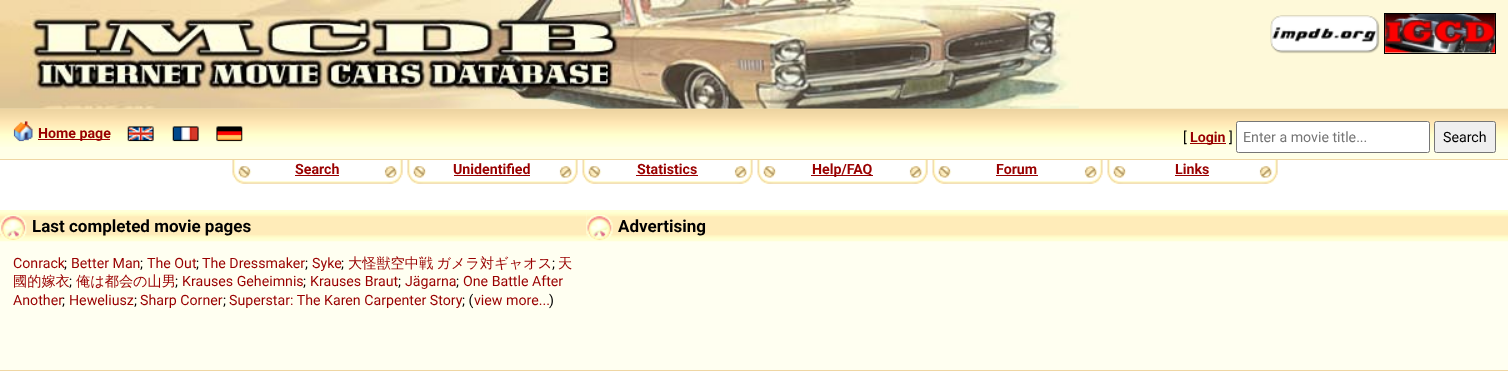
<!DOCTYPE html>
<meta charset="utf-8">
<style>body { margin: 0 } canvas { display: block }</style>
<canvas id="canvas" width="1508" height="375"></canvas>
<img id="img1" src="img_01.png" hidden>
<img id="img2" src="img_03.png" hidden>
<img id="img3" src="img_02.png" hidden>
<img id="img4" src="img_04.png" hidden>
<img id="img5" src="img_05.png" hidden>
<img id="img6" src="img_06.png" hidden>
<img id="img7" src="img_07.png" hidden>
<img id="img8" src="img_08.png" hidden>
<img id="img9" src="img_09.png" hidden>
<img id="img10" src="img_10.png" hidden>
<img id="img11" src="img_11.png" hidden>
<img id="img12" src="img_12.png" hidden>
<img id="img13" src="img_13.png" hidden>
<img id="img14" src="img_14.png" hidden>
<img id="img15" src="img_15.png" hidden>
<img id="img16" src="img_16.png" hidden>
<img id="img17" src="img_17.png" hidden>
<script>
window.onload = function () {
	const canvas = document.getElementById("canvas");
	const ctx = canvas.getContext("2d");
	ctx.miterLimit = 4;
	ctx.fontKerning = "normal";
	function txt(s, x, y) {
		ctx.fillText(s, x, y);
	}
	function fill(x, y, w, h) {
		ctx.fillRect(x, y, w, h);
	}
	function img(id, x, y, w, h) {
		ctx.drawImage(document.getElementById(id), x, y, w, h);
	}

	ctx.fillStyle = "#FFFFFF";
	fill(0, 0, 1508, 375);
	ctx.fillStyle = "#FEF9D9";
	fill(0, 0, 1508, 109);
	img("img1", 0, 0, 1079, 109);
	img("img2", 1385, 14, 110, 39);
	ctx.strokeStyle = "#000000";
	ctx.strokeRect(1384.5, 13.5, 111, 40);
	img("img3", 1270, 15, 110, 39);
	ctx.fillStyle = "#FFFFE7";
	fill(0, 147, 1508, 12);
	img("img4", 0, 108, 1508, 39);
	ctx.fillStyle = "#EFD6A3";
	fill(0, 159, 1508, 1);
	img("img5", 13, 121, 20, 21);
	ctx.fillStyle = "#990000";
	fill(38, 139, 72, 1);
	img("img6", 127, 126, 27, 16);
	img("img7", 172, 126, 27, 16);
	img("img8", 216, 126, 27, 16);
	fill(1190, 143, 36, 1);
	ctx.fillStyle = "#FFFFFF";
	ctx.beginPath();
	ctx.roundRect(1236.5, 121.5, 193, 31, 2);
	ctx.fill();
	ctx.strokeStyle = "#767676";
	ctx.stroke();
	ctx.fillStyle = "#EFEFEF";
	ctx.beginPath();
	ctx.roundRect(1434.5, 121.5, 61, 31, 2);
	ctx.fill();
	ctx.stroke();
	img("img9", 232, 160, 171, 24);
	ctx.fillStyle = "#990000";
	fill(295, 175, 44, 1);
	img("img10", 407, 160, 171, 24);
	fill(454, 175, 76, 1);
	img("img11", 582, 160, 171, 24);
	fill(636, 175, 62, 1);
	img("img12", 757, 160, 171, 24);
	fill(811, 175, 62, 1);
	img("img11", 932, 160, 171, 24);
	fill(996, 175, 42, 1);
	img("img13", 1107, 160, 171, 24);
	fill(1175, 175, 34, 1);
	ctx.fillStyle = "#FFFFF1";
	fill(0, 241, 1508, 129);
	ctx.fillStyle = "#EFD6A3";
	fill(0, 370, 1508, 1);
	ctx.fillStyle = "#FFFFD7";
	fill(0, 210, 586, 2);
	img("img14", 0, 212, 586, 30);
	img("img15", 0, 215, 27, 25);
	fill(586, 210, 922, 31);
	img("img16", 586, 212, 922, 30);
	img("img17", 586, 215, 27, 26);
	ctx.font = "bold 14.2px Roboto";
	ctx.fillStyle = "#990000";
	txt("Home page", 38, 138);
	ctx.font = "14.2px Roboto";
	ctx.fillStyle = "#000000";
	txt("[", 1183, 142);
	ctx.font = "bold 14.2px Roboto";
	ctx.fillStyle = "#990000";
	txt("Login", 1190, 142);
	ctx.font = "14.2px Roboto";
	ctx.fillStyle = "#000000";
	txt("]", 1229, 142);
	ctx.fillStyle = "#757575";
	txt("Enter a movie title...", 1243, 142);
	ctx.fillStyle = "#000000";
	txt("Search", 1443, 142);
	ctx.font = "bold 14.2px Roboto";
	ctx.fillStyle = "#990000";
	txt("Search", 295, 174);
	txt("Unidentified", 453, 174);
	txt("Statistics", 637, 174);
	txt("Help/FAQ", 812, 174);
	txt("Forum", 996, 174);
	txt("Links", 1175, 174);
	ctx.font = "bold 17px Roboto";
	ctx.fillStyle = "#000000";
	txt("Last completed movie pages", 32, 232);
	ctx.font = "14.2px Roboto";
	ctx.fillStyle = "#990000";
	txt("Conrack", 13, 268);
	ctx.fillStyle = "#000000";
	txt(";", 64, 268);
	ctx.fillStyle = "#990000";
	txt("Better Man", 71, 268);
	ctx.fillStyle = "#000000";
	txt(";", 140, 268);
	ctx.fillStyle = "#990000";
	txt("The Out", 147, 268);
	ctx.fillStyle = "#000000";
	txt(";", 196, 268);
	ctx.fillStyle = "#990000";
	txt("The Dressmaker", 202, 268);
	ctx.fillStyle = "#000000";
	txt(";", 305, 268);
	ctx.fillStyle = "#990000";
	txt("Syke", 312, 268);
	ctx.fillStyle = "#000000";
	txt(";", 341, 268);
	ctx.wordSpacing = "-1px";
	ctx.font = "500 14.2px WenQuanYi Zen Hei";
	ctx.fillStyle = "#990000";
	txt("大怪獣空中戦 ガメラ対ギャオス", 348, 268);
	ctx.wordSpacing = "0px";
	ctx.font = "14.2px Roboto";
	ctx.fillStyle = "#000000";
	txt(";", 552, 268);
	ctx.font = "500 14.2px WenQuanYi Zen Hei";
	ctx.fillStyle = "#990000";
	txt("天", 558, 268);
	txt("國的嫁衣", 13, 286);
	ctx.font = "14.2px Roboto";
	ctx.fillStyle = "#000000";
	txt(";", 69, 286);
	ctx.font = "500 14.2px WenQuanYi Zen Hei";
	ctx.fillStyle = "#990000";
	txt("俺は都会の山男", 76, 286);
	ctx.font = "14.2px Roboto";
	ctx.fillStyle = "#000000";
	txt(";", 175, 286);
	ctx.fillStyle = "#990000";
	txt("Krauses Geheimnis", 182, 286);
	ctx.fillStyle = "#000000";
	txt(";", 303, 286);
	ctx.fillStyle = "#990000";
	txt("Krauses Braut", 310, 286);
	ctx.fillStyle = "#000000";
	txt(";", 398, 286);
	ctx.fillStyle = "#990000";
	txt("Jägarna", 405, 286);
	ctx.fillStyle = "#000000";
	txt(";", 456, 286);
	ctx.fillStyle = "#990000";
	txt("One Battle After", 463, 286);
	txt("Another", 13, 305);
	ctx.fillStyle = "#000000";
	txt(";", 62, 305);
	ctx.fillStyle = "#990000";
	txt("Heweliusz", 69, 305);
	ctx.fillStyle = "#000000";
	txt(";", 134, 305);
	ctx.fillStyle = "#990000";
	txt("Sharp Corner", 140, 305);
	ctx.fillStyle = "#000000";
	txt(";", 223, 305);
	ctx.fillStyle = "#990000";
	txt("Superstar: The Karen Carpenter Story", 229, 305);
	ctx.fillStyle = "#000000";
	txt("; (", 462, 305);
	ctx.fillStyle = "#990000";
	txt("view more...", 474, 305);
	ctx.fillStyle = "#000000";
	txt(")", 549, 305);
	ctx.font = "bold 17px Roboto";
	txt("Advertising", 618, 232);
};
</script>
